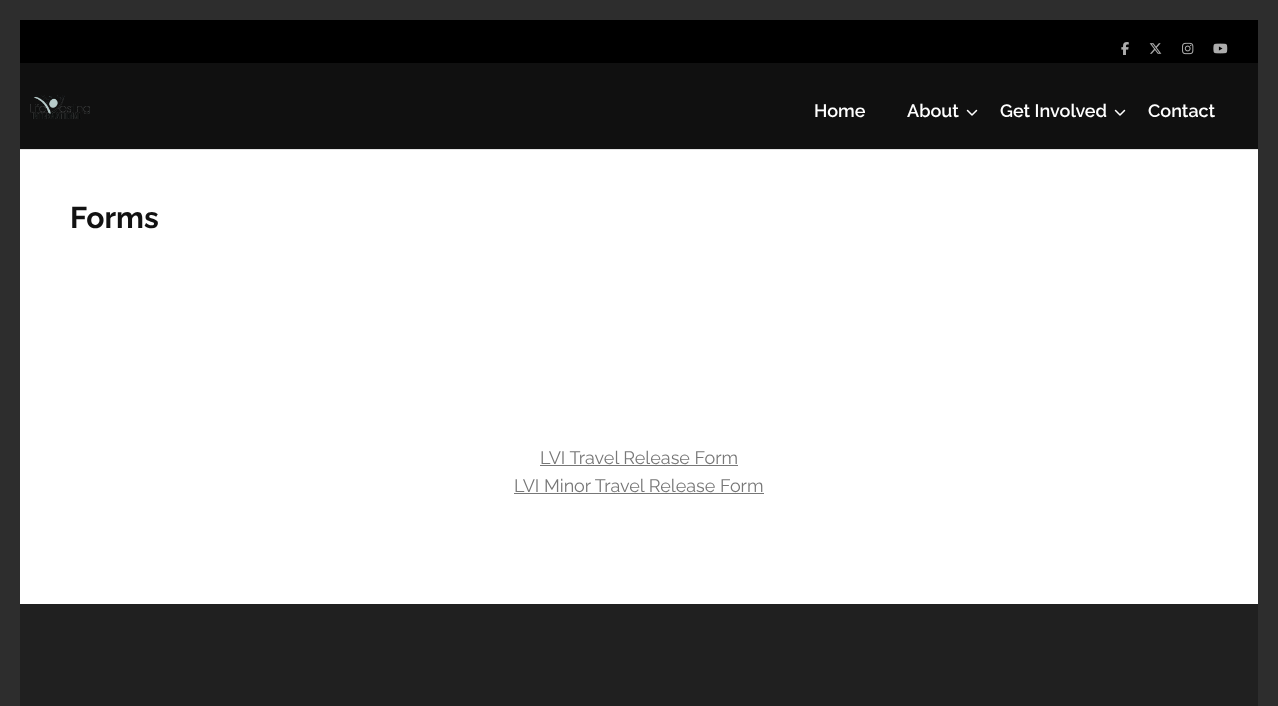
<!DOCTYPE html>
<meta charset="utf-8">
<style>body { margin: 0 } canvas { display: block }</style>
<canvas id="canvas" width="1278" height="706"></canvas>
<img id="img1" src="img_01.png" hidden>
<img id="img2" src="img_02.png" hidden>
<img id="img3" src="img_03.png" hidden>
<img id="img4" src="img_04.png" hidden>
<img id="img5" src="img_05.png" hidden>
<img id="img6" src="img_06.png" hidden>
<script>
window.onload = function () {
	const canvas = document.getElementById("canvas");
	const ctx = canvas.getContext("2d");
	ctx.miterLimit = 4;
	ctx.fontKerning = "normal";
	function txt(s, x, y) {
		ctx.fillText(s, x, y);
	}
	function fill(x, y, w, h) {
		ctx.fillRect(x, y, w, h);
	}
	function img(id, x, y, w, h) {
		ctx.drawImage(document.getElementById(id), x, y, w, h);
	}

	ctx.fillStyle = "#2D2D2D";
	fill(0, 0, 1278, 706);
	ctx.fillStyle = "#FFFFFF";
	fill(20, 150, 1238, 454);
	ctx.fillStyle = "#E4E4E4";
	fill(20, 149, 1238, 1);
	ctx.fillStyle = "#000000";
	fill(20, 20, 1238, 43);
	img("img1", 1121, 42, 8, 13);
	img("img2", 1149, 43, 13, 11);
	img("img3", 1182, 42, 12, 13);
	img("img4", 1213, 43, 15, 11);
	ctx.fillStyle = "#101010";
	fill(20, 63, 1238, 86);
	img("img5", 30, 95, 60, 24);
	img("img6", 966, 109, 12, 7);
	img("img6", 1114, 109, 12, 7);
	ctx.fillStyle = "#777777";
	fill(540, 465, 198, 1);
	fill(514, 493, 250, 1);
	ctx.fillStyle = "#202020";
	fill(20, 604, 1238, 102);
	ctx.font = "600 18px Raleway";
	ctx.fillStyle = "#FFFFFF";
	txt("Home", 814, 117);
	txt("About", 907, 117);
	txt("Get Involved", 1000, 117);
	txt("Contact", 1148, 117);
	ctx.font = "bold 30px Raleway";
	ctx.fillStyle = "#121212";
	txt("Forms", 70, 228);
	ctx.font = "18px Raleway";
	ctx.fillStyle = "#777777";
	txt("LVI Travel Release Form", 540, 464);
	txt("LVI Minor Travel Release Form", 514, 492);
};
</script>
